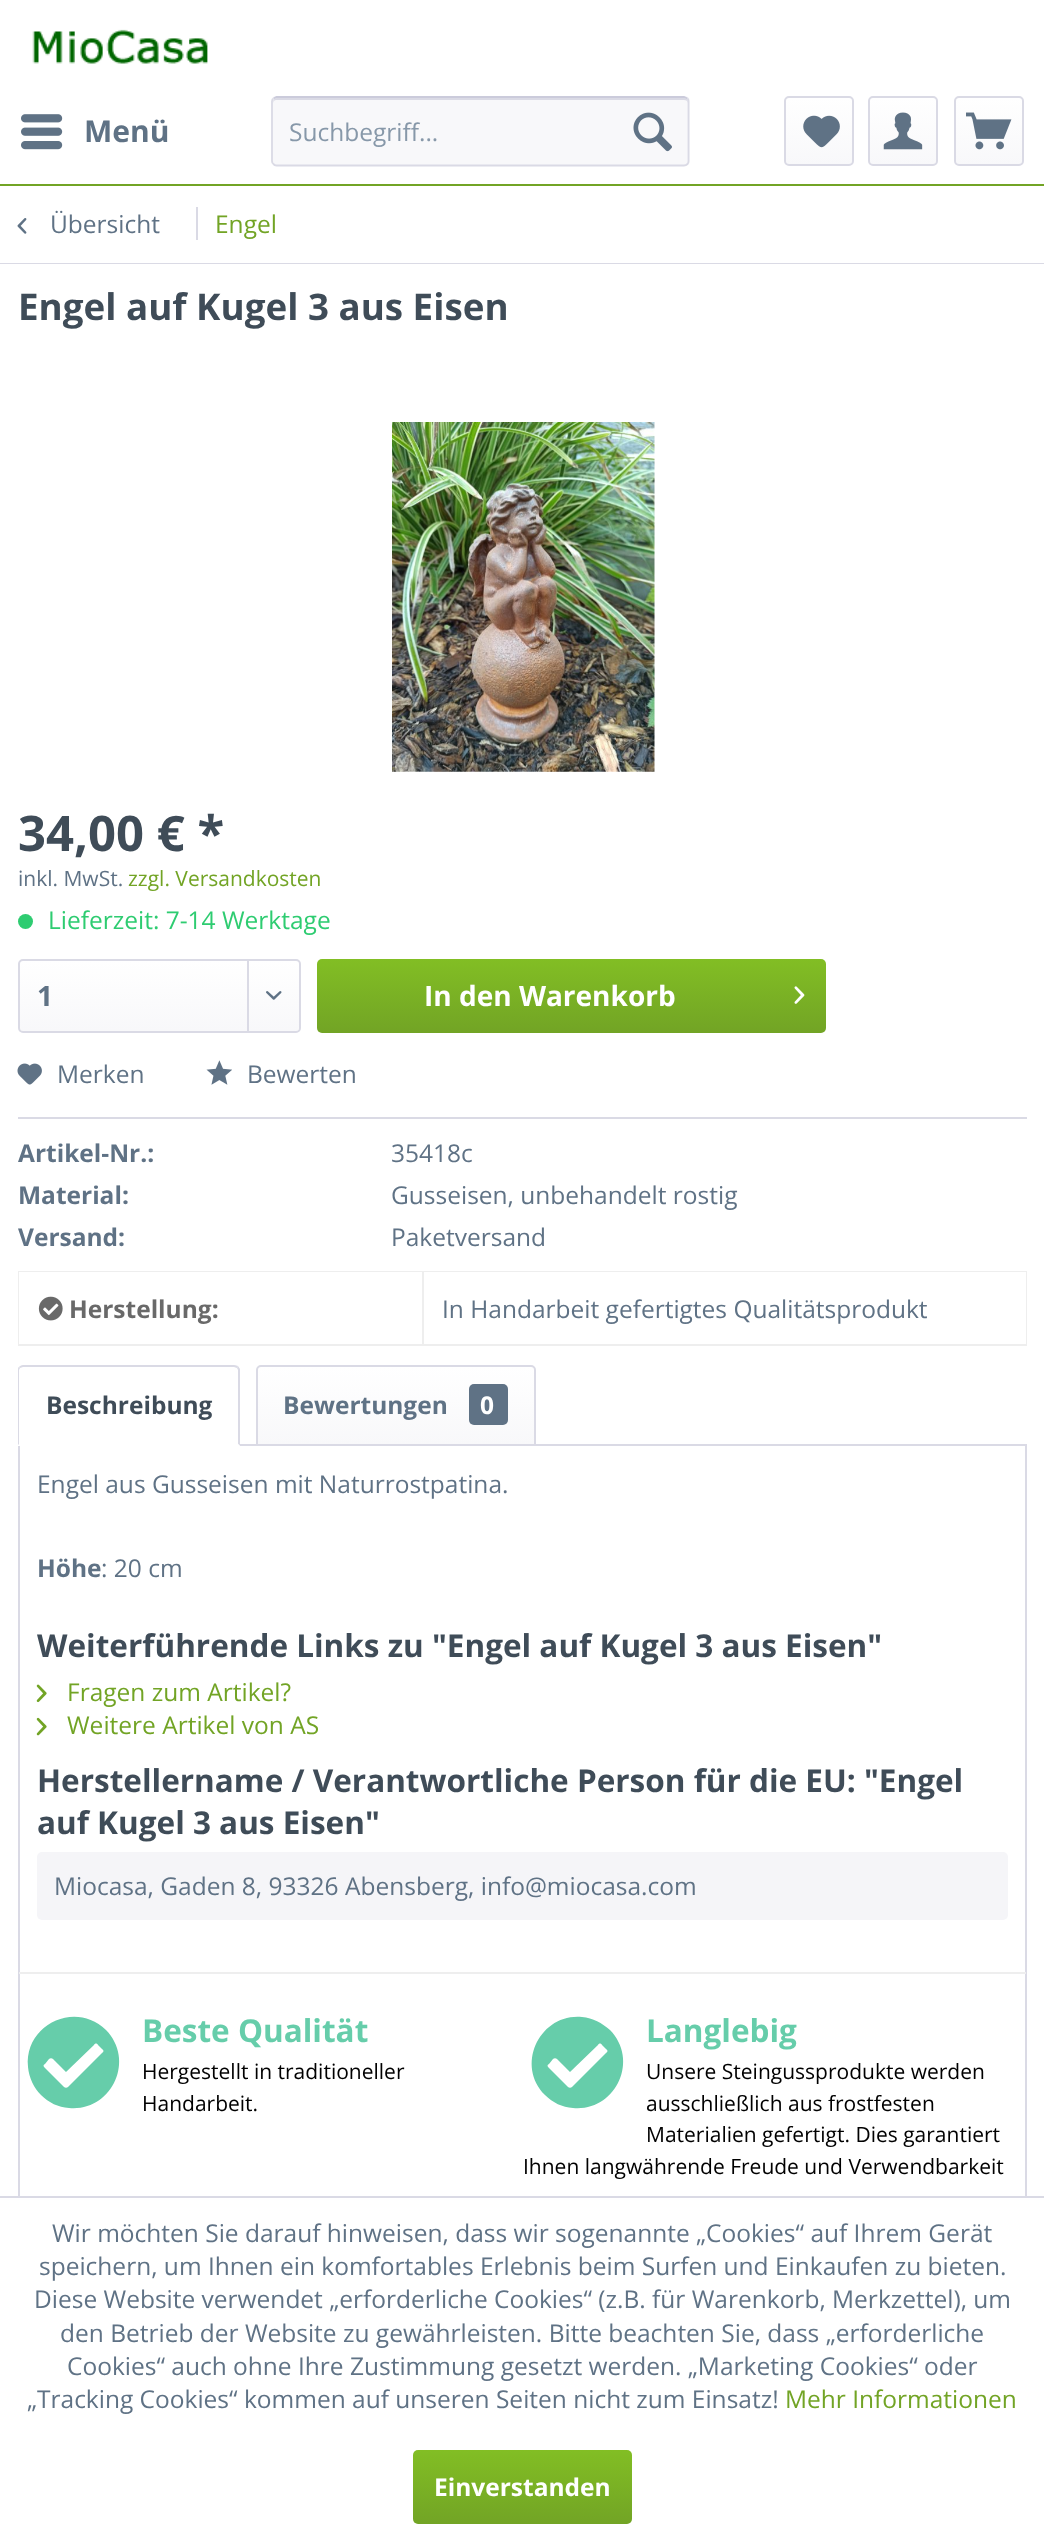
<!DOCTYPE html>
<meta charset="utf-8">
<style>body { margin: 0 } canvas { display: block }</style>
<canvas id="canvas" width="1044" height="2541"></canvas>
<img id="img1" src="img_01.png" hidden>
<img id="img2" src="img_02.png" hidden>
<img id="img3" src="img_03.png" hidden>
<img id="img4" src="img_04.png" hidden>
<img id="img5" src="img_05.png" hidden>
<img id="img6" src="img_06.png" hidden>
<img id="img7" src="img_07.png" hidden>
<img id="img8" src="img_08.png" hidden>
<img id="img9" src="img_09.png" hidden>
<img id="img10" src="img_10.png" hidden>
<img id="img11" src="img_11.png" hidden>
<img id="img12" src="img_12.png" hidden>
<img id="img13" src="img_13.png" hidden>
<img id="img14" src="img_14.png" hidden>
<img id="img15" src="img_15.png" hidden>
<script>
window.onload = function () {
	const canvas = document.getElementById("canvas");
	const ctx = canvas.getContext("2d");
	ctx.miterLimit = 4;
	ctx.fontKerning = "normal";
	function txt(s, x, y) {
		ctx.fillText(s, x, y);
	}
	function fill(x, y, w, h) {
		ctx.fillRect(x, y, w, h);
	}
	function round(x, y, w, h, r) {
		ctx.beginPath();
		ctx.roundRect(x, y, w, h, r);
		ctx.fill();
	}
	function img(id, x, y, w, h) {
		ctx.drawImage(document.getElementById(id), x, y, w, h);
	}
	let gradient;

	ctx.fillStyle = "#FFFFFF";
	fill(0, 0, 1044, 2541);
	ctx.fillStyle = "#72A425";
	fill(0, 184, 1044, 2);
	img("img1", 32, 29, 176, 35);
	img("img2", 21, 114, 42, 36);
	ctx.fillStyle = "#F8F8FA";
	round(271, 96, 419, 70, 5);
	ctx.fillStyle = "#DADAE5";
	ctx.beginPath();
	ctx.moveTo(276, 100);
	ctx.lineTo(684, 100);
	ctx.bezierCurveTo(686, 100, 688, 101, 688, 103);
	ctx.lineTo(688, 102);
	ctx.bezierCurveTo(688, 100, 686, 98, 684, 98);
	ctx.lineTo(277, 98);
	ctx.bezierCurveTo(275, 98, 273, 100, 273, 102);
	ctx.lineTo(273, 103);
	ctx.bezierCurveTo(273, 101, 275, 100, 276, 100);
	ctx.closePath();
	ctx.fill();
	ctx.beginPath();
	ctx.moveTo(273.5, 98.5);
	ctx.lineTo(276.5, 97);
	ctx.lineTo(684, 97);
	ctx.lineTo(687.5, 98.5);
	ctx.strokeStyle = "#CBCBDB";
	ctx.lineWidth = 1.8;
	ctx.stroke();
	ctx.beginPath();
	ctx.moveTo(687.5, 98.5);
	ctx.bezierCurveTo(688, 99, 688.5, 100.5, 688.5, 101.5);
	ctx.lineTo(688.5, 161);
	ctx.bezierCurveTo(688.5, 162, 688, 163.5, 687.5, 164);
	ctx.bezierCurveTo(686.5, 165, 685.5, 165.5, 684, 165.5);
	ctx.lineTo(276.5, 165.5);
	ctx.bezierCurveTo(275.5, 165.5, 274, 165, 273.5, 164);
	ctx.bezierCurveTo(272.5, 163.5, 272, 162, 272, 161);
	ctx.lineTo(272, 101.5);
	ctx.bezierCurveTo(272, 100.5, 272.5, 99, 273.5, 98.5);
	ctx.strokeStyle = "#DADAE5";
	ctx.stroke();
	img("img3", 633, 112, 39, 40);
	gradient = ctx.createLinearGradient(819, 98, 819, 165);
	gradient.addColorStop(0, "#FFFFFF");
	gradient.addColorStop(1, "#F8F8FA");
	ctx.fillStyle = gradient;
	round(786, 98, 66, 67, 4);
	ctx.beginPath();
	ctx.roundRect(785, 97, 68, 68, 4);
	ctx.lineWidth = 2;
	ctx.stroke();
	img("img4", 803, 115, 37, 33);
	gradient = ctx.createLinearGradient(903, 98, 903, 165);
	gradient.addColorStop(0, "#FFFFFF");
	gradient.addColorStop(1, "#F8F8FA");
	ctx.fillStyle = gradient;
	round(870, 98, 66, 67, 4);
	ctx.beginPath();
	ctx.roundRect(869, 97, 68, 68, 4);
	ctx.stroke();
	img("img5", 883, 112, 40, 38);
	gradient = ctx.createLinearGradient(989, 98, 989, 165);
	gradient.addColorStop(0, "#FFFFFF");
	gradient.addColorStop(1, "#F8F8FA");
	ctx.fillStyle = gradient;
	round(956, 98, 66, 67, 4);
	ctx.beginPath();
	ctx.roundRect(955, 97, 68, 68, 4);
	ctx.stroke();
	img("img6", 966, 112, 46, 38);
	ctx.fillStyle = "#DADAE5";
	fill(0, 263, 1044, 1);
	img("img7", 17, 218, 10, 16);
	fill(196, 207, 2, 33);
	img("img8", 392, 422, 263, 350);
	ctx.fillStyle = "#2ECC71";
	ctx.beginPath();
	ctx.arc(25.5, 921.5, 7.5, 0, Math.PI * 2);
	ctx.fill();
	gradient = ctx.createLinearGradient(159, 961, 159, 1031);
	gradient.addColorStop(0, "#FFFFFF");
	gradient.addColorStop(1, "#F8F8FA");
	ctx.fillStyle = gradient;
	round(19, 961, 280, 70, 4);
	ctx.beginPath();
	ctx.roundRect(19, 960, 281, 72, 4);
	ctx.stroke();
	ctx.fillStyle = "#DADAE5";
	fill(247, 961, 2, 70);
	img("img9", 266, 991, 16, 9);
	gradient = ctx.createLinearGradient(571, 959, 571, 1033);
	gradient.addColorStop(0, "#82BE24");
	gradient.addColorStop(1, "#72A425");
	ctx.fillStyle = gradient;
	round(317, 959, 509, 74, 5);
	img("img10", 794, 986, 11, 18);
	ctx.fillStyle = "#DADAE5";
	fill(18, 1117, 1009, 2);
	img("img11", 17, 1063, 25, 22);
	img("img12", 206, 1060, 26, 25);
	ctx.fillStyle = "#EEEEEE";
	fill(18, 1271, 1009, 75);
	ctx.fillStyle = "#FFFFFF";
	fill(19, 1272, 403, 72);
	img("img13", 38, 1296, 25, 25);
	fill(424, 1272, 602, 72);
	ctx.strokeRect(19, 1445, 1007, 894);
	ctx.beginPath();
	ctx.roundRect(18, 1365, 222, 81, [5, 5, 0, 0]);
	ctx.fill();
	ctx.fillStyle = "#DADAE5";
	ctx.beginPath();
	ctx.moveTo(23, 1365);
	ctx.bezierCurveTo(21, 1365, 20, 1366, 19, 1367);
	ctx.lineTo(20, 1368);
	ctx.lineTo(23, 1367);
	ctx.lineTo(234, 1367);
	ctx.lineTo(237, 1368);
	ctx.lineTo(238, 1366);
	ctx.bezierCurveTo(237, 1366, 236, 1365, 234, 1365);
	ctx.closePath();
	ctx.fill();
	ctx.beginPath();
	ctx.moveTo(238, 1366);
	ctx.lineTo(240, 1369);
	ctx.lineTo(240, 1446);
	ctx.lineTo(238, 1444);
	ctx.lineTo(238, 1370);
	ctx.lineTo(237, 1368);
	ctx.closePath();
	ctx.fill();
	ctx.fillStyle = "#FFFFFF";
	ctx.beginPath();
	ctx.moveTo(240, 1446);
	ctx.lineTo(18, 1446);
	ctx.lineTo(19, 1444);
	ctx.lineTo(238, 1444);
	ctx.closePath();
	ctx.fill();
	ctx.fillStyle = "#DADAE5";
	ctx.beginPath();
	ctx.moveTo(19, 1367);
	ctx.bezierCurveTo(18, 1367, 18, 1369, 18, 1370);
	ctx.lineTo(18, 1445);
	ctx.lineTo(19, 1444);
	ctx.lineTo(19, 1370);
	ctx.lineTo(20, 1368);
	ctx.closePath();
	ctx.fill();
	gradient = ctx.createLinearGradient(396, 1367, 396, 1444);
	gradient.addColorStop(0, "#FFFFFF");
	gradient.addColorStop(1, "#F8F8FA");
	ctx.fillStyle = gradient;
	ctx.beginPath();
	ctx.roundRect(257, 1367, 277, 77, [4, 4, 0, 0]);
	ctx.fill();
	ctx.beginPath();
	ctx.roundRect(257, 1366, 278, 79, [4, 4, 0, 0]);
	ctx.stroke();
	ctx.fillStyle = "#5F7285";
	round(469, 1384, 39, 41, 5);
	img("img14", 36, 1684, 11, 19);
	img("img15", 36, 1717, 11, 19);
	ctx.fillStyle = "#F5F5F8";
	round(37, 1852, 971, 68, 5);
	ctx.fillStyle = "#EEEEEE";
	fill(19, 1972, 1007, 2);
	ctx.fillStyle = "#66CDAA";
	ctx.beginPath();
	ctx.moveTo(106, 2030);
	ctx.bezierCurveTo(136, 2061, 111, 2112, 69, 2108);
	ctx.bezierCurveTo(58, 2107, 49, 2103, 41, 2095);
	ctx.bezierCurveTo(34, 2088, 29, 2078, 28, 2067);
	ctx.bezierCurveTo(24, 2025, 75, 2000, 106, 2030);
	ctx.closePath();
	ctx.moveTo(68, 2087);
	ctx.lineTo(102, 2053);
	ctx.bezierCurveTo(104, 2052, 104, 2050, 102, 2049);
	ctx.lineTo(98, 2045);
	ctx.bezierCurveTo(97, 2043, 95, 2043, 94, 2045);
	ctx.lineTo(66, 2072);
	ctx.lineTo(53, 2059);
	ctx.bezierCurveTo(52, 2058, 50, 2058, 49, 2059);
	ctx.lineTo(45, 2064);
	ctx.bezierCurveTo(43, 2065, 43, 2066, 45, 2068);
	ctx.lineTo(64, 2087);
	ctx.bezierCurveTo(65, 2088, 67, 2088, 68, 2087);
	ctx.closePath();
	ctx.fill();
	ctx.beginPath();
	ctx.moveTo(610, 2030);
	ctx.bezierCurveTo(640, 2061, 615, 2112, 573, 2108);
	ctx.bezierCurveTo(562, 2107, 553, 2103, 545, 2095);
	ctx.bezierCurveTo(515, 2065, 540, 2013, 582, 2017);
	ctx.bezierCurveTo(593, 2018, 602, 2023, 610, 2030);
	ctx.closePath();
	ctx.moveTo(572, 2087);
	ctx.lineTo(606, 2053);
	ctx.bezierCurveTo(608, 2052, 608, 2050, 606, 2049);
	ctx.lineTo(602, 2045);
	ctx.bezierCurveTo(601, 2043, 599, 2043, 598, 2045);
	ctx.lineTo(570, 2072);
	ctx.lineTo(557, 2059);
	ctx.bezierCurveTo(556, 2058, 554, 2058, 553, 2059);
	ctx.lineTo(549, 2064);
	ctx.bezierCurveTo(547, 2065, 547, 2066, 549, 2068);
	ctx.lineTo(568, 2087);
	ctx.bezierCurveTo(569, 2088, 571, 2088, 572, 2087);
	ctx.closePath();
	ctx.fill();
	ctx.fillStyle = "#FFFFFF";
	fill(18, 2198, 1009, 142);
	ctx.fillStyle = "#DADAE5";
	fill(0, 2196, 1044, 2);
	gradient = ctx.createLinearGradient(522, 2450, 522, 2524);
	gradient.addColorStop(0, "#82BE24");
	gradient.addColorStop(1, "#72A425");
	ctx.fillStyle = gradient;
	round(413, 2450, 219, 74, 5);
	ctx.font = "bold 30px Open Sans";
	ctx.fillStyle = "#5F7285";
	txt("Menü", 84, 142);
	ctx.font = "24.5px Open Sans";
	ctx.fillStyle = "#8798A9";
	txt("Suchbegriff...", 289, 141);
	ctx.fillStyle = "#5F7285";
	txt("Übersicht", 50, 233);
	ctx.fillStyle = "#72A425";
	txt("Engel", 215, 233);
	ctx.font = "bold 36.75px Open Sans";
	ctx.fillStyle = "#3F4C58";
	txt("Engel auf Kugel 3 aus Eisen", 18, 320);
	ctx.font = "bold 49px Open Sans";
	txt("34,00 € *", 18, 851);
	ctx.font = "21px Open Sans";
	ctx.fillStyle = "#5F7285";
	txt("inkl. MwSt.", 18, 886);
	ctx.fillStyle = "#72A425";
	txt("zzgl. Versandkosten", 128, 886);
	ctx.font = "24.5px Open Sans";
	ctx.fillStyle = "#2ECC71";
	txt("Lieferzeit: 7-14 Werktage", 48, 929);
	ctx.font = "bold 28px Open Sans";
	ctx.fillStyle = "#5F7285";
	txt("1", 37, 1006);
	ctx.fillStyle = "#FFFFFF";
	txt("In den Warenkorb", 424, 1006);
	ctx.font = "24.5px Open Sans";
	ctx.fillStyle = "#5F7285";
	txt("Merken", 57, 1083);
	txt("Bewerten", 247, 1083);
	ctx.font = "bold 24.5px Open Sans";
	txt("Artikel-Nr.:", 18, 1162);
	ctx.font = "24.5px Open Sans";
	txt("35418c", 391, 1162);
	ctx.font = "bold 24.5px Open Sans";
	txt("Material:", 18, 1204);
	ctx.font = "24.5px Open Sans";
	txt("Gusseisen, unbehandelt rostig", 391, 1204);
	ctx.font = "bold 24.5px Open Sans";
	txt("Versand:", 18, 1246);
	ctx.font = "24.5px Open Sans";
	txt("Paketversand", 391, 1246);
	ctx.font = "bold 24.5px Open Sans";
	ctx.fillStyle = "#696969";
	txt("Herstellung:", 69, 1318);
	ctx.font = "24.5px Open Sans";
	ctx.fillStyle = "#5F7285";
	txt("In Handarbeit gefertigtes Qualitätsprodukt", 442, 1318);
	ctx.font = "bold 24.5px Open Sans";
	ctx.fillStyle = "#3F4C58";
	txt("Beschreibung", 46, 1414);
	ctx.fillStyle = "#5F7285";
	txt("Bewertungen", 283, 1414);
	ctx.fillStyle = "#FFFFFF";
	txt("0", 480, 1414);
	ctx.font = "24.5px Open Sans";
	ctx.fillStyle = "#5F7285";
	txt("Engel aus Gusseisen mit Naturrostpatina.", 37, 1493);
	ctx.font = "bold 24.5px Open Sans";
	txt("Höhe", 37, 1577);
	ctx.font = "24.5px Open Sans";
	txt(": 20 cm", 101, 1577);
	ctx.font = "bold 31.5px Open Sans";
	ctx.fillStyle = "#3F4C58";
	txt("Weiterführende Links zu \"Engel auf Kugel 3 aus Eisen\"", 37, 1657);
	ctx.font = "24.5px Open Sans";
	ctx.fillStyle = "#72A425";
	txt("Fragen zum Artikel?", 67, 1701);
	txt("Weitere Artikel von AS", 67, 1734);
	ctx.font = "bold 31.5px Open Sans";
	ctx.fillStyle = "#3F4C58";
	txt("Herstellername / Verantwortliche Person für die EU: \"Engel", 37, 1792);
	txt("auf Kugel 3 aus Eisen\"", 37, 1834);
	ctx.font = "24.5px Open Sans";
	ctx.fillStyle = "#5F7285";
	txt("Miocasa, Gaden 8, 93326 Abensberg, info@miocasa.com", 54, 1895);
	ctx.font = "bold 31.5px Open Sans";
	ctx.fillStyle = "#66CDAA";
	txt("Beste Qualität", 142, 2042);
	ctx.font = "21px Open Sans";
	ctx.fillStyle = "#000000";
	txt("Hergestellt in traditioneller", 142, 2079);
	txt("Handarbeit.", 142, 2111);
	ctx.font = "bold 31.5px Open Sans";
	ctx.fillStyle = "#66CDAA";
	txt("Langlebig", 646, 2042);
	ctx.font = "21px Open Sans";
	ctx.fillStyle = "#000000";
	txt("Unsere Steingussprodukte werden", 646, 2079);
	txt("ausschließlich aus frostfesten", 646, 2111);
	txt("Materialien gefertigt. Dies garantiert", 646, 2142);
	txt("Ihnen langwährende Freude und Verwendbarkeit", 523, 2174);
	ctx.font = "24.5px Open Sans";
	ctx.fillStyle = "#5F7285";
	txt("Wir möchten Sie darauf hinweisen, dass wir sogenannte „Cookies“ auf Ihrem Gerät", 52, 2242);
	txt("speichern, um Ihnen ein komfortables Erlebnis beim Surfen und Einkaufen zu bieten.", 39, 2275);
	txt("Diese Website verwendet „erforderliche Cookies“ (z.B. für Warenkorb, Merkzettel), um", 34, 2308);
	txt("den Betrieb der Website zu gewährleisten. Bitte beachten Sie, dass „erforderliche", 60, 2342);
	txt("Cookies“ auch ohne Ihre Zustimmung gesetzt werden. „Marketing Cookies“ oder", 67, 2375);
	txt("„Tracking Cookies“ kommen auf unseren Seiten nicht zum Einsatz!", 27, 2408);
	ctx.fillStyle = "#72A425";
	txt("Mehr Informationen", 785, 2408);
	ctx.font = "bold 24.5px Open Sans";
	ctx.fillStyle = "#FFFFFF";
	txt("Einverstanden", 434, 2496);
};
</script>
